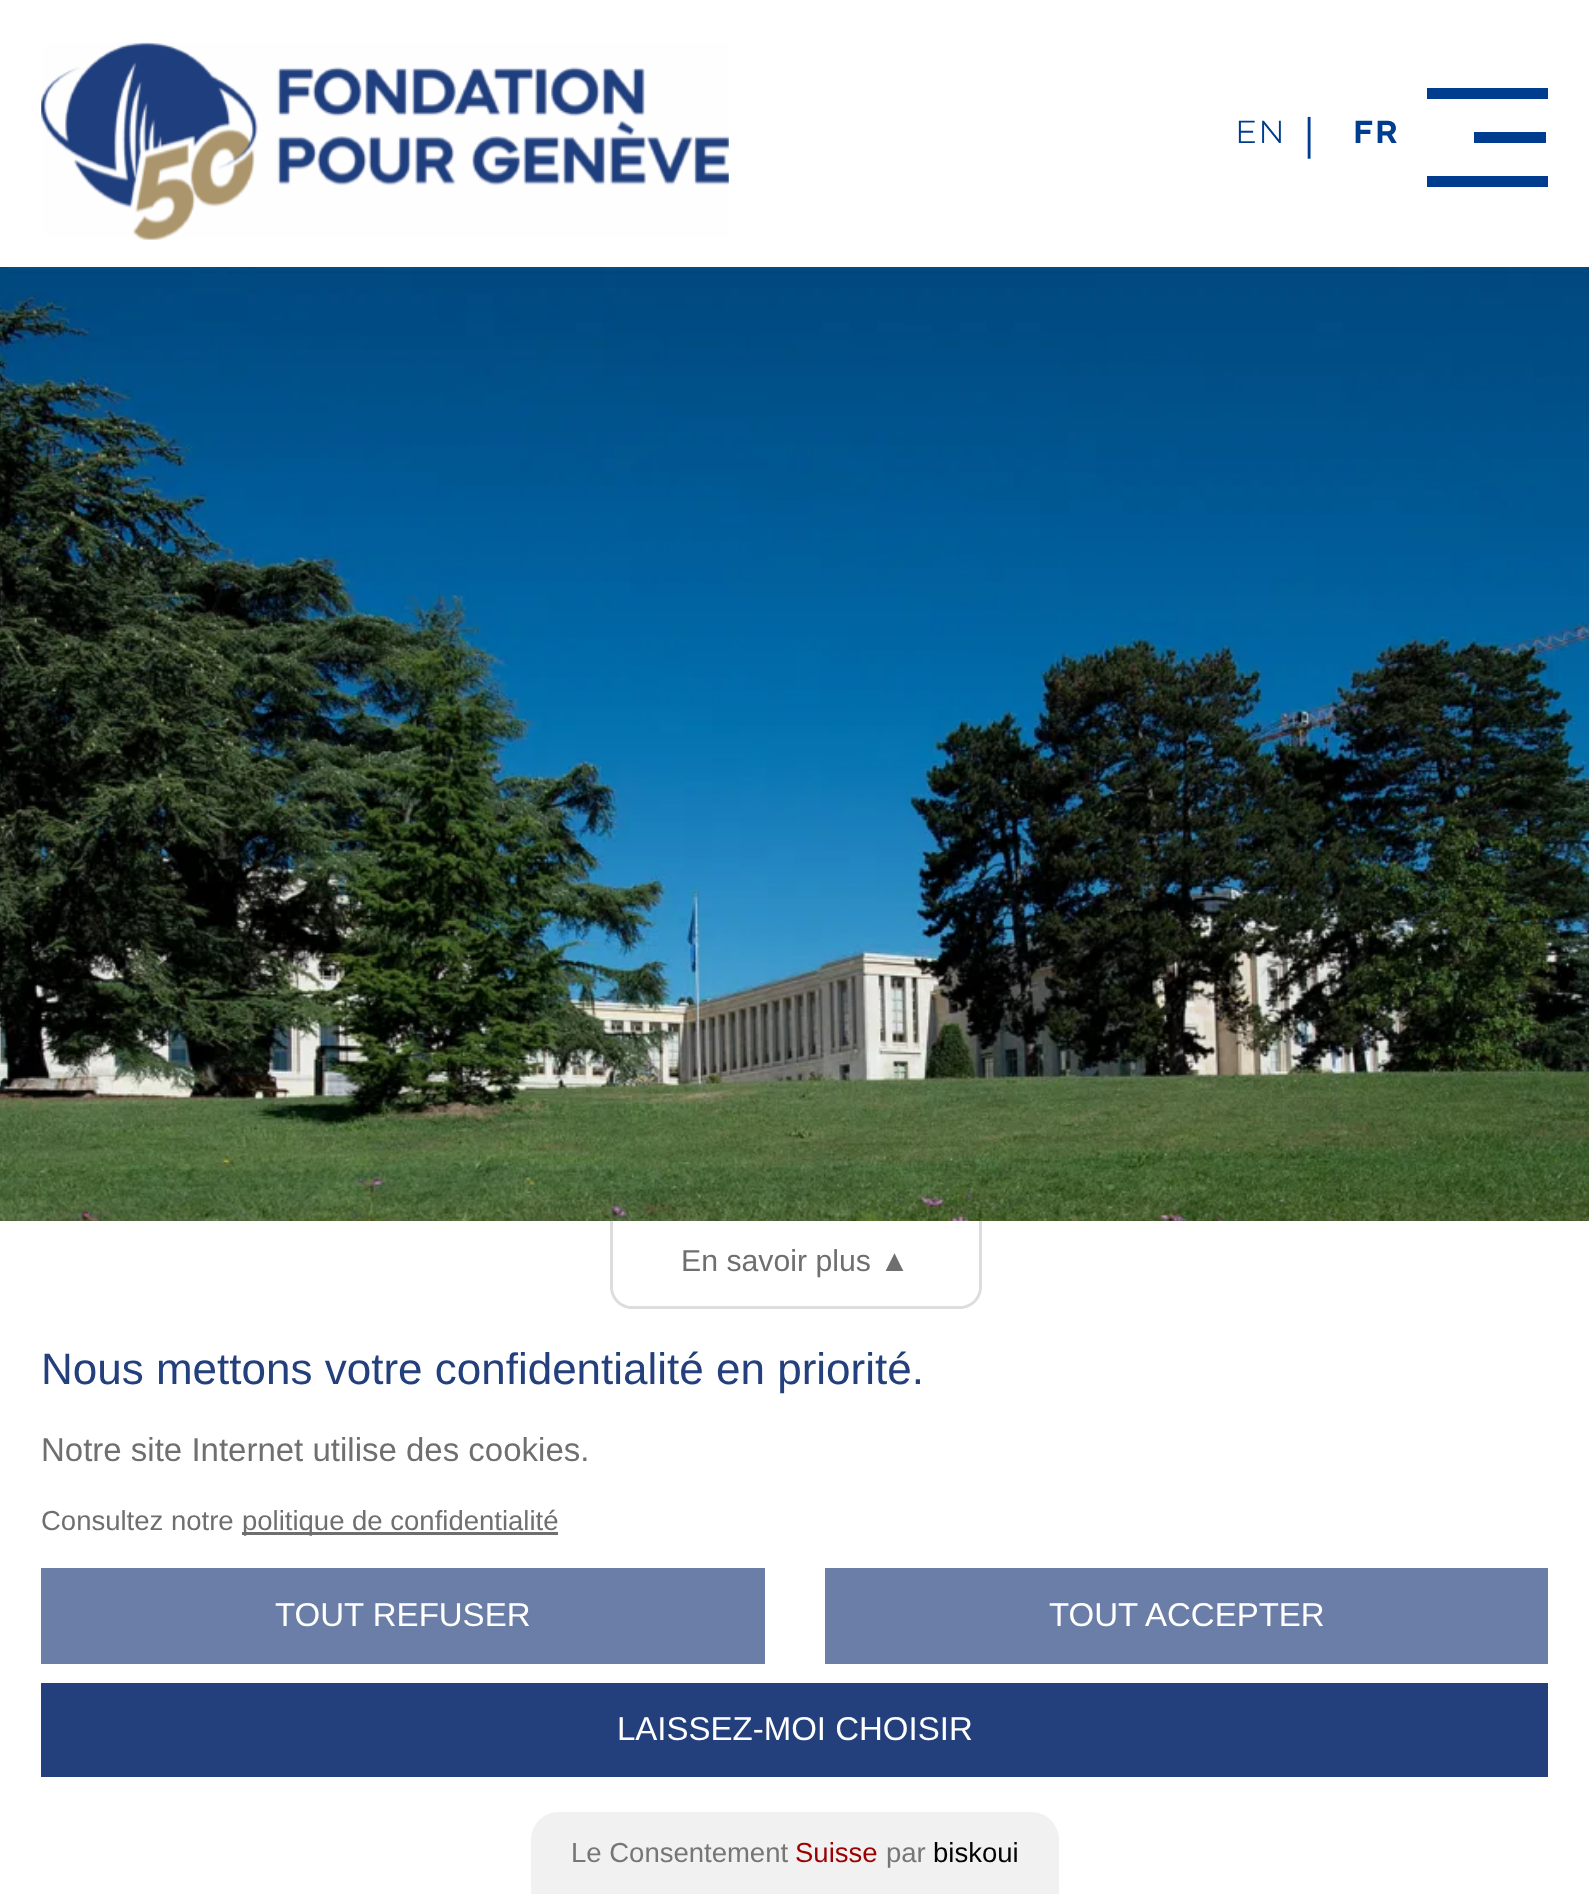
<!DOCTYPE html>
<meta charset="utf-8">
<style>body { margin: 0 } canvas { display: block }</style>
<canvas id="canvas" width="1589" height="1894"></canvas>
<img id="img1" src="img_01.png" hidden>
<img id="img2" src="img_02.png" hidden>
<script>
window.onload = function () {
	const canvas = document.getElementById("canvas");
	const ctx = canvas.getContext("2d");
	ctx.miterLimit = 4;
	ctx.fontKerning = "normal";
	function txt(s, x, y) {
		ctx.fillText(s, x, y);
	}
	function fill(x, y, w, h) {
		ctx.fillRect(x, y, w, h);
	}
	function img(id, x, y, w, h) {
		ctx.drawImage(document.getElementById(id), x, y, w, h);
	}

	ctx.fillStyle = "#FFFFFF";
	fill(0, 0, 1589, 1894);
	img("img1", 41, 42, 688, 198);
	ctx.fillStyle = "#003D8F";
	fill(1427, 88, 121, 11);
	fill(1474, 132, 72, 11);
	fill(1427, 176, 121, 11);
	img("img2", 0, 267, 1589, 954);
	ctx.fillStyle = "rgba(33, 37, 41, 0.28)";
	ctx.filter = "blur(66px)";
	ctx.beginPath();
	ctx.rect(0, 1265, 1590, 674);
	ctx.fill();
	ctx.filter = "none";
	ctx.fillStyle = "#FFFFFF";
	fill(0, 1221, 1589, 673);
	ctx.fillStyle = "#DDDDDD";
	ctx.beginPath();
	ctx.moveTo(610, 1221);
	ctx.lineTo(982, 1221);
	ctx.lineTo(982, 1287);
	ctx.bezierCurveTo(982, 1299, 972, 1309, 960, 1309);
	ctx.lineTo(632, 1309);
	ctx.bezierCurveTo(620, 1309, 610, 1299, 610, 1287);
	ctx.closePath();
	ctx.moveTo(613, 1221);
	ctx.lineTo(979, 1221);
	ctx.lineTo(979, 1287);
	ctx.bezierCurveTo(979, 1298, 970, 1306, 960, 1306);
	ctx.lineTo(632, 1306);
	ctx.bezierCurveTo(622, 1306, 613, 1298, 613, 1287);
	ctx.closePath();
	ctx.fill("evenodd");
	ctx.fillStyle = "#706F6F";
	fill(242, 1532, 316, 3);
	ctx.fillStyle = "#6B7EA7";
	fill(41, 1568, 724, 96);
	fill(825, 1568, 723, 96);
	ctx.fillStyle = "#24407C";
	fill(41, 1683, 1507, 94);
	ctx.fillStyle = "#F1F1F1";
	ctx.beginPath();
	ctx.moveTo(559, 1812);
	ctx.lineTo(1031, 1812);
	ctx.bezierCurveTo(1046.5, 1812, 1059, 1824.5, 1059, 1840);
	ctx.lineTo(1059, 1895);
	ctx.lineTo(531, 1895);
	ctx.lineTo(531, 1840);
	ctx.bezierCurveTo(531, 1824.5, 543.5, 1812, 559, 1812);
	ctx.closePath();
	ctx.fill();
	ctx.letterSpacing = "3px";
	ctx.font = "300 33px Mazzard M";
	ctx.fillStyle = "#003D8F";
	txt("EN", 1236, 143);
	ctx.letterSpacing = "0px";
	ctx.font = "44px Mazzard M";
	txt("|", 1305, 151);
	ctx.letterSpacing = "3px";
	ctx.font = "bold 33px Mazzard M";
	txt("FR", 1354, 143);
	ctx.letterSpacing = "0px";
	ctx.font = "30.25px Liberation Sans";
	ctx.fillStyle = "#706F6F";
	txt("En savoir plus ▲", 681, 1271);
	ctx.font = "44px Liberation Sans";
	ctx.fillStyle = "#24407C";
	txt("Nous mettons votre confidentialité en priorité.", 41, 1384);
	ctx.font = "33px Liberation Sans";
	ctx.fillStyle = "#706F6F";
	txt("Notre site Internet utilise des cookies.", 41, 1461);
	ctx.font = "27.5px Liberation Sans";
	txt("Consultez notre", 41, 1530);
	txt("politique de confidentialité", 242, 1530);
	ctx.font = "33px Liberation Sans";
	ctx.fillStyle = "#FFFFFF";
	txt("TOUT REFUSER", 275, 1626);
	txt("TOUT ACCEPTER", 1049, 1626);
	txt("LAISSEZ-MOI CHOISIR", 617, 1740);
	ctx.font = "27.5px Liberation Sans";
	ctx.fillStyle = "#767676";
	txt("Le Consentement", 571, 1862);
	ctx.fillStyle = "#9C0000";
	txt("Suisse", 795, 1862);
	ctx.fillStyle = "#767676";
	txt("par", 886, 1862);
	ctx.fillStyle = "#030303";
	txt("biskoui", 933, 1862);
};
</script>
